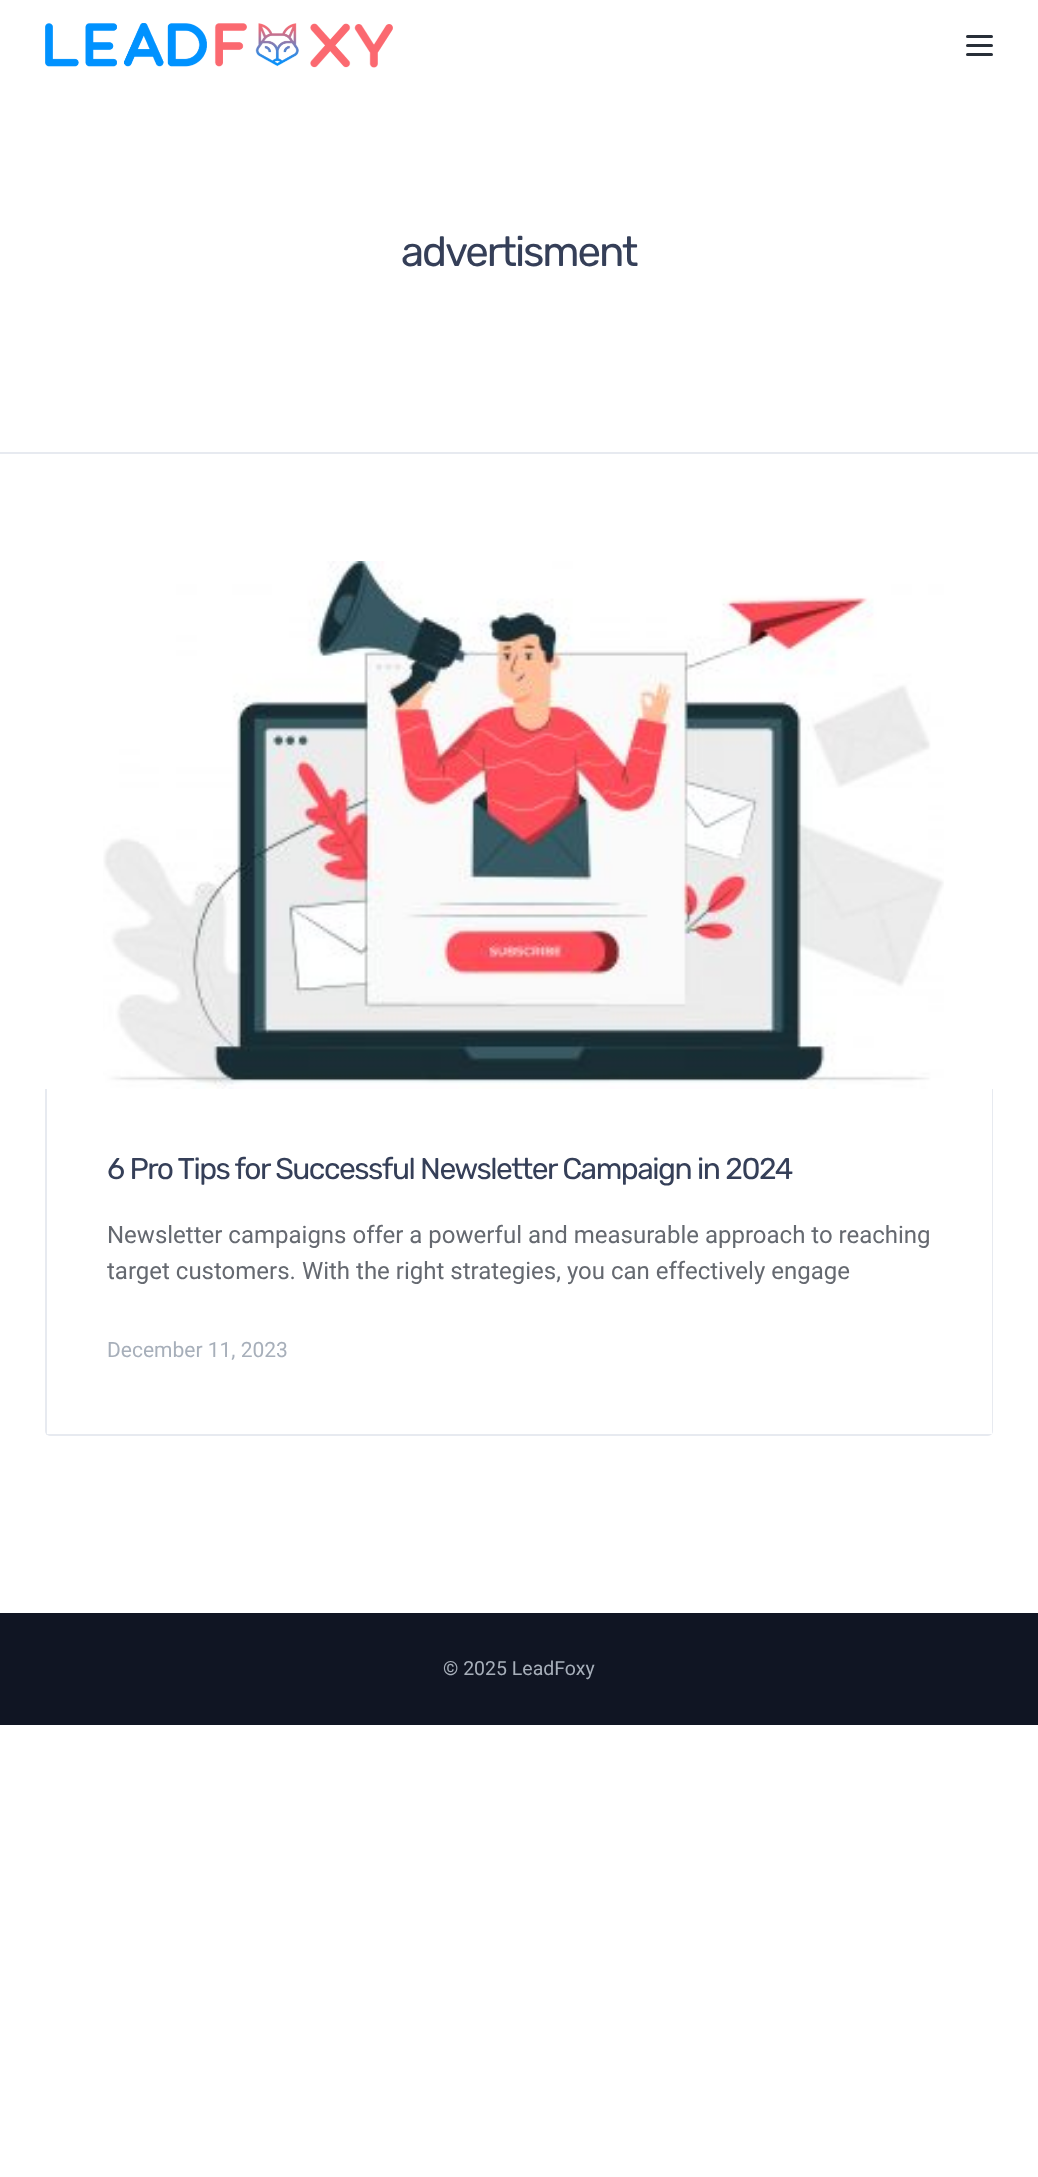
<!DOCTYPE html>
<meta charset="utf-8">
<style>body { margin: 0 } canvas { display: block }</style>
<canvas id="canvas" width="1038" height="2177"></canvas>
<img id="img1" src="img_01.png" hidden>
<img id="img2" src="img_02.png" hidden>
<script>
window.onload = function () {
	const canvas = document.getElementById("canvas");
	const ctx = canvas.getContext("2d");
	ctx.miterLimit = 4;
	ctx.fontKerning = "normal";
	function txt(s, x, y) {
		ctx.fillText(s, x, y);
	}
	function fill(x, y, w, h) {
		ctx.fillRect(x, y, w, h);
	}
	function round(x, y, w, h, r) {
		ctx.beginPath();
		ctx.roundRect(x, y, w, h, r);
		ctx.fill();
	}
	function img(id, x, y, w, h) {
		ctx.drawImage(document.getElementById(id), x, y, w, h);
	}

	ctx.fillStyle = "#FFFFFF";
	fill(0, 0, 1038, 2177);
	img("img1", 45, 23, 348, 45);
	ctx.fillStyle = "#282E38";
	round(966, 35, 27, 3, 1.5);
	round(966, 44, 27, 3, 1.5);
	round(966, 53, 27, 3, 1.5);
	ctx.fillStyle = "#E7EAF0";
	fill(0, 452, 1038, 2);
	img("img2", 103, 561, 841, 528);
	ctx.save();
	ctx.beginPath();
	ctx.roundRect(45, 561, 948, 875, 5);
	ctx.clip();
	fill(992, 1089, 1, 347);
	fill(45, 1434, 948, 2);
	fill(45, 1089, 2, 347);
	ctx.restore();
	ctx.fillStyle = "#101523";
	fill(0, 1613, 1038, 112);
	ctx.letterSpacing = "-2.1px";
	ctx.font = "42px Rubik";
	ctx.fillStyle = "#353F58";
	txt("advertisment", 401, 266);
	ctx.letterSpacing = "-1.5px";
	ctx.font = "30px Rubik";
	txt("6 Pro Tips for Successful Newsletter Campaign in 2024", 107, 1179);
	ctx.letterSpacing = "0px";
	ctx.font = "24px Roboto";
	ctx.fillStyle = "#656970";
	txt("Newsletter campaigns offer a powerful and measurable approach to reaching", 107, 1243);
	txt("target customers. With the right strategies, you can effectively engage", 107, 1279);
	ctx.font = "21px Roboto";
	ctx.fillStyle = "#A7AFBA";
	txt("December 11, 2023", 107, 1357);
	ctx.font = "19.5px Roboto";
	txt("© 2025 LeadFoxy", 443, 1675);
};
</script>
